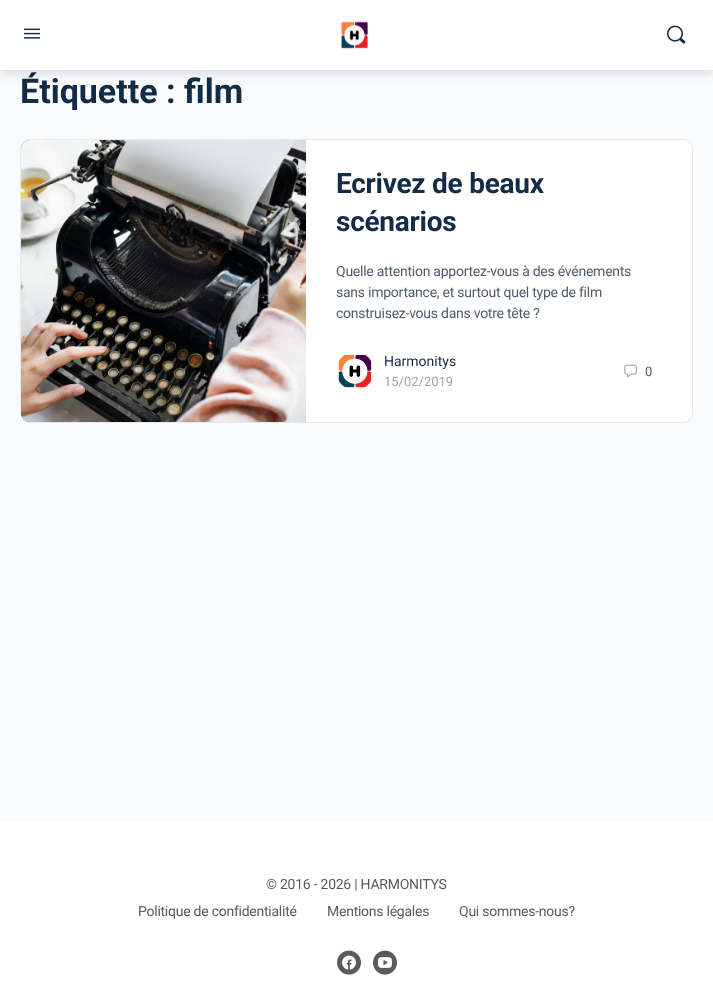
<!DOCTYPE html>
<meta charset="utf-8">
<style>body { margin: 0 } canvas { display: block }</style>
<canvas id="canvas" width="713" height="1001"></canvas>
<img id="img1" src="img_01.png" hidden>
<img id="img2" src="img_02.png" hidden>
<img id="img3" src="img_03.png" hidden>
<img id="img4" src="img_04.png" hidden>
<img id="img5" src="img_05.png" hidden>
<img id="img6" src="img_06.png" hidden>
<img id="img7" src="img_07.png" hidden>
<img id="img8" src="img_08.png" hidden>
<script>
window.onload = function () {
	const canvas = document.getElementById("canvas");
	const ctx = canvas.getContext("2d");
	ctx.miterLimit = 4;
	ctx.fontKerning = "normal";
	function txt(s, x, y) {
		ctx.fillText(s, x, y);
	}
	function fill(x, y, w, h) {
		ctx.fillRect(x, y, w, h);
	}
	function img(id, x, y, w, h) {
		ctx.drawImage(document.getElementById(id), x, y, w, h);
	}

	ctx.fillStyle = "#FAFBFD";
	fill(0, 0, 713, 1001);
	ctx.fillStyle = "rgba(65, 71, 108, 0.15)";
	ctx.filter = "blur(5px)";
	ctx.beginPath();
	ctx.rect(0, 5, 713, 70);
	ctx.fill();
	ctx.filter = "none";
	ctx.fillStyle = "rgba(139, 141, 157, 0.05)";
	fill(0, 70, 713, 1);
	ctx.fillStyle = "#FFFFFF";
	fill(0, 0, 713, 70);
	img("img1", 24, 28, 16, 11);
	img("img2", 341, 21, 27, 28);
	img("img3", 667, 25, 19, 19);
	ctx.beginPath();
	ctx.roundRect(20.5, 139.5, 672, 283, 9.5);
	ctx.fill();
	ctx.strokeStyle = "#E7E9EC";
	ctx.stroke();
	ctx.fillStyle = "#607387";
	ctx.beginPath();
	ctx.roundRect(21, 140, 285, 282, [9, 0, 0, 9]);
	ctx.fill();
	img("img4", 21, 140, 285, 282);
	img("img5", 338, 354, 34, 34);
	img("img6", 624, 364, 13, 14);
	ctx.fillStyle = "#FFFFFF";
	fill(0, 821, 713, 180);
	img("img7", 337, 950, 24, 25);
	img("img8", 373, 950, 24, 25);
	ctx.font = "bold 34px Roboto";
	ctx.fillStyle = "#122B46";
	txt("Étiquette : film", 20, 103);
	ctx.letterSpacing = "-0.25px";
	ctx.font = "bold 28px Roboto";
	txt("Ecrivez de beaux", 336, 193);
	txt("scénarios", 336, 231);
	ctx.font = "14px Roboto";
	ctx.fillStyle = "#4D5C6D";
	txt("Quelle attention apportez-vous à des événements", 336, 276);
	txt("sans importance, et surtout quel type de film", 336, 297);
	txt("construisez-vous dans votre tête ?", 336, 318);
	ctx.letterSpacing = "0px";
	ctx.fillStyle = "#122B46";
	txt("Harmonitys", 384, 366);
	ctx.font = "13px Roboto";
	ctx.fillStyle = "#A3A5A9";
	txt("15/02/2019", 384, 386);
	ctx.fillStyle = "#4D5C6D";
	txt("0", 645, 376);
	ctx.letterSpacing = "-0.25px";
	ctx.font = "14px Roboto";
	ctx.fillStyle = "#5A5A5A";
	txt("© 2016 - 2026 | HARMONITYS", 266, 889);
	txt("Politique de confidentialité", 138, 916);
	txt("Mentions légales", 327, 916);
	txt("Qui sommes-nous?", 459, 916);
};
</script>
